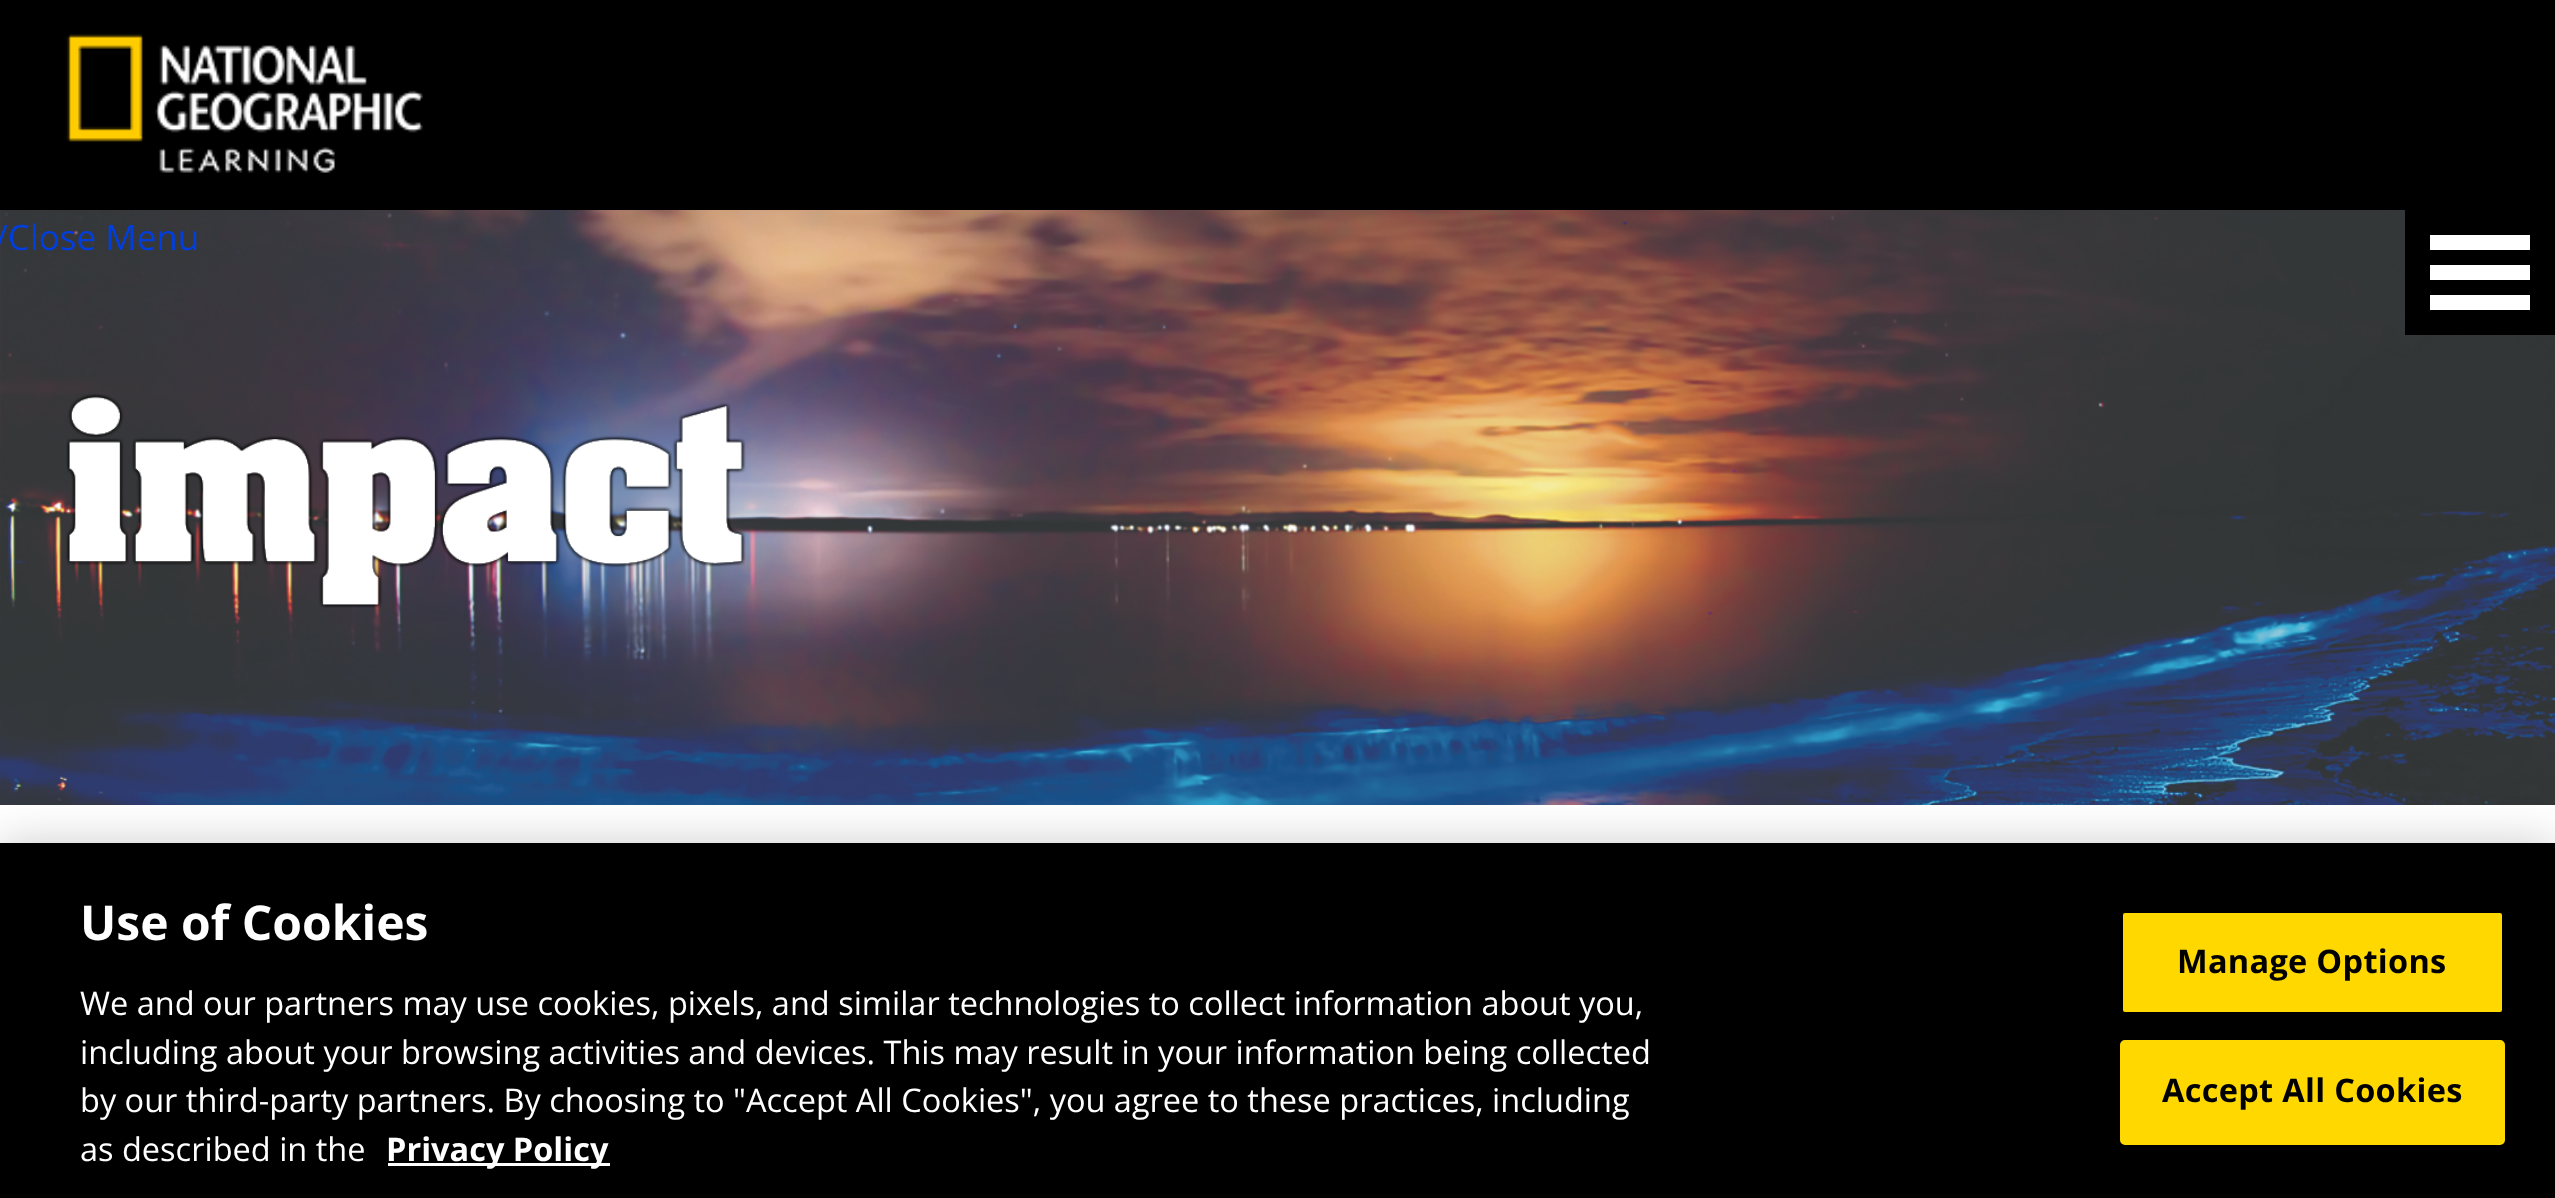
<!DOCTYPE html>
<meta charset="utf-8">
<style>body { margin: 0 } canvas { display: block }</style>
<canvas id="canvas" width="2555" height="1198"></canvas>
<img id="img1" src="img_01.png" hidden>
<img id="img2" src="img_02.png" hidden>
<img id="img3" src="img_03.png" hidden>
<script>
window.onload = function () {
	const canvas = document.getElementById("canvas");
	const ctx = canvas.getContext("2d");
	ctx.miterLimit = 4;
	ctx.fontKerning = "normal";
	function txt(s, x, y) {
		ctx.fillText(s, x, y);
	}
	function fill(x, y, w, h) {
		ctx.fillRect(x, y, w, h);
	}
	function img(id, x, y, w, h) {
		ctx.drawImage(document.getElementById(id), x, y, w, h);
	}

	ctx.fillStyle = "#FFFFFF";
	fill(0, 0, 2555, 1198);
	ctx.fillStyle = "#000000";
	fill(0, 0, 2555, 210);
	img("img1", 66, 34, 357, 139);
	img("img2", 0, 210, 2555, 595);
	img("img3", 66, 394, 680, 214);
	fill(2405, 210, 150, 125);
	ctx.fillStyle = "#FFFFFF";
	fill(2430, 295, 100, 15);
	fill(2430, 265, 100, 15);
	fill(2430, 235, 100, 15);
	ctx.fillStyle = "rgba(0, 0, 0, 0.2)";
	ctx.filter = "blur(22.5px)";
	ctx.beginPath();
	ctx.rect(0, 843, 2555, 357);
	ctx.fill();
	ctx.filter = "none";
	ctx.fillStyle = "#000000";
	fill(0, 843, 2555, 355);
	ctx.fillStyle = "#FFFFFF";
	fill(388, 1163, 222, 3);
	ctx.fillStyle = "#FFD800";
	ctx.beginPath();
	ctx.roundRect(2121.5, 911.5, 382, 102, 3.5);
	ctx.fill();
	ctx.strokeStyle = "#000000";
	ctx.lineWidth = 3;
	ctx.stroke();
	ctx.beginPath();
	ctx.roundRect(2121.5, 1041.5, 382, 102, 3.5);
	ctx.fill();
	ctx.strokeStyle = "#FFD800";
	ctx.stroke();
	ctx.font = "35px Open Sans";
	ctx.fillStyle = "#003EDD";
	txt("/Close Menu", -5, 250);
	ctx.font = "bold 48px Open Sans";
	ctx.fillStyle = "#FFFFFF";
	txt("Use of Cookies", 80, 940);
	ctx.font = "32.5px Open Sans";
	txt("We and our partners may use cookies, pixels, and similar technologies to collect information about you,", 80, 1015);
	txt("including about your browsing activities and devices. This may result in your information being collected", 80, 1064);
	txt("by our third-party partners. By choosing to \"Accept All Cookies\", you agree to these practices, including", 80, 1112);
	txt("as described in the", 80, 1161);
	ctx.font = "bold 32.5px Open Sans";
	txt("Privacy Policy", 386, 1161);
	ctx.letterSpacing = "0.3px";
	ctx.fillStyle = "#000000";
	txt("Manage Options", 2177, 973);
	txt("Accept All Cookies", 2162, 1102);
};
</script>
